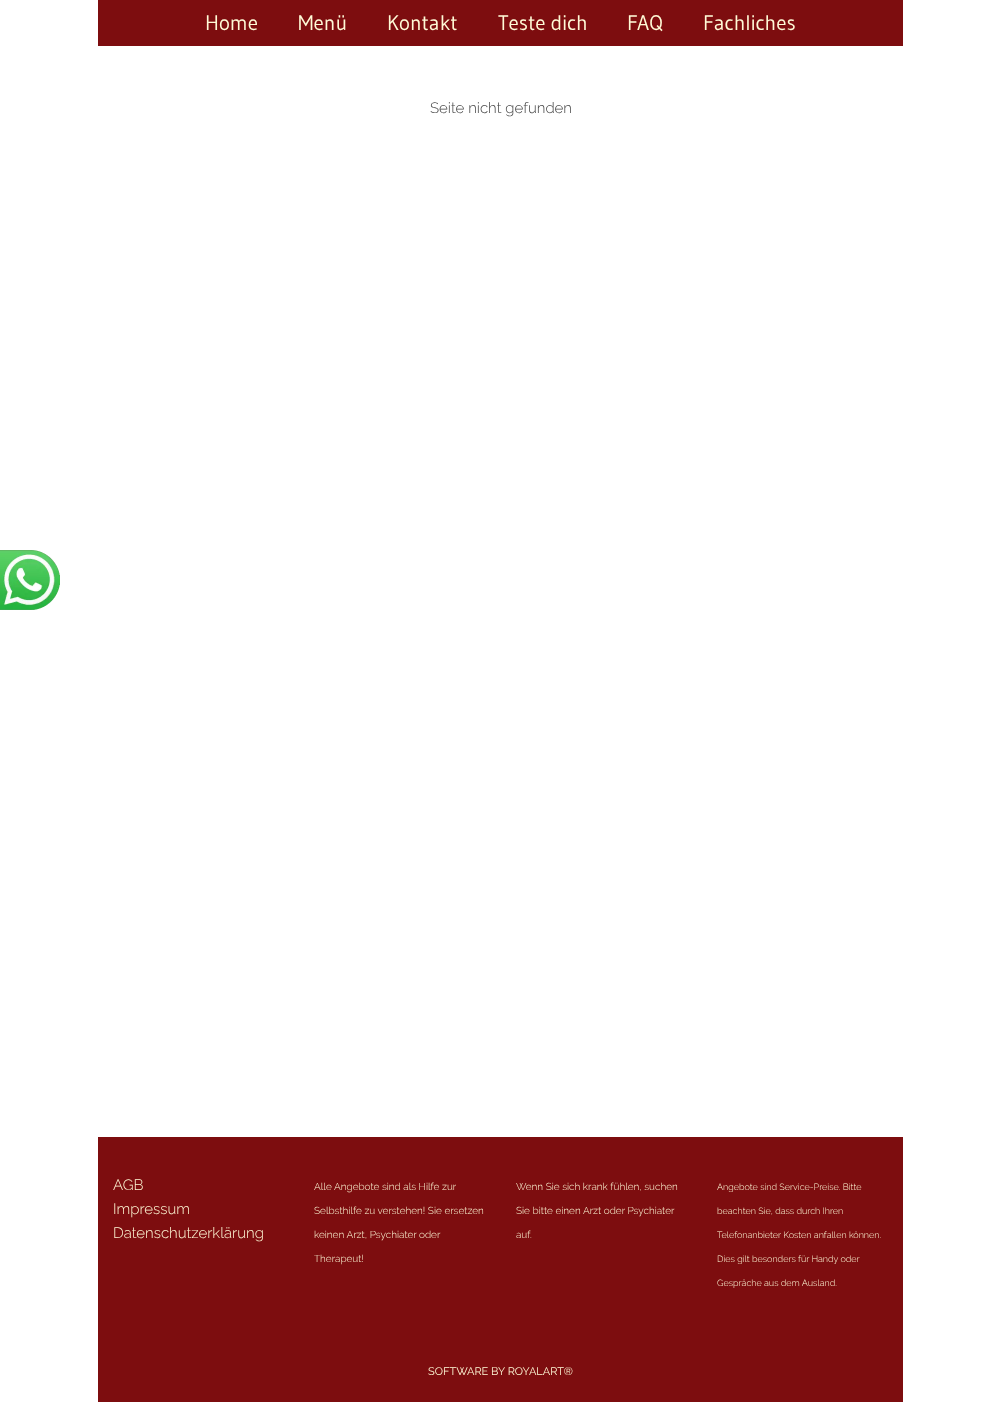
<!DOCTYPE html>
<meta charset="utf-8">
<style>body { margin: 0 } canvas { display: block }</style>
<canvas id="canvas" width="1001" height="1402"></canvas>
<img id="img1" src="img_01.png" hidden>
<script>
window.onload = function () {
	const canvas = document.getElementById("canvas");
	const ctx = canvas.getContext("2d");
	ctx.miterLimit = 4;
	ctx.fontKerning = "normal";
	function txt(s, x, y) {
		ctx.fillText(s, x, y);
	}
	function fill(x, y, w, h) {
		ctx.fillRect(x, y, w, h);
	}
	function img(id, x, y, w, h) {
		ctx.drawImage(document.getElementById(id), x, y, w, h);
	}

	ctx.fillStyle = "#FFFFFF";
	fill(0, 0, 1001, 1402);
	ctx.fillStyle = "#7D0D0F";
	fill(98, 0, 805, 46);
	img("img1", 0, 550, 60, 60);
	fill(98, 1137, 805, 265);
	ctx.font = "21px Gudea";
	ctx.fillStyle = "#FFFAD7";
	txt("Home", 205, 30);
	txt("Menü", 298, 30);
	txt("Kontakt", 387, 30);
	txt("Teste dich", 498, 30);
	txt("FAQ", 627, 30);
	txt("Fachliches", 703, 30);
	ctx.font = "300 15px Raleway";
	ctx.fillStyle = "#444444";
	txt("Seite nicht gefunden", 430, 113);
	ctx.fillStyle = "#FFFAD7";
	txt("AGB", 113, 1190);
	txt("Impressum", 113, 1214);
	txt("Datenschutzerklärung", 113, 1238);
	ctx.font = "300 10px Raleway";
	txt("Alle Angebote sind als Hilfe zur", 314, 1190);
	txt("Selbsthilfe zu verstehen! Sie ersetzen", 314, 1214);
	txt("keinen Arzt, Psychiater oder", 314, 1238);
	txt("Therapeut!", 314, 1262);
	txt("Wenn Sie sich krank fühlen, suchen", 516, 1190);
	txt("Sie bitte einen Arzt oder Psychiater", 516, 1214);
	txt("auf.", 516, 1238);
	ctx.font = "300 9px Raleway";
	txt("Angebote sind Service-Preise. Bitte", 717, 1190);
	txt("beachten Sie, dass durch Ihren", 717, 1214);
	txt("Telefonanbieter Kosten anfallen können.", 717, 1238);
	txt("Dies gilt besonders für Handy oder", 717, 1262);
	txt("Gespräche aus dem Ausland.", 717, 1286);
	ctx.font = "11px Raleway";
	txt("SOFTWARE BY ROYALART®", 428, 1375);
};
</script>
